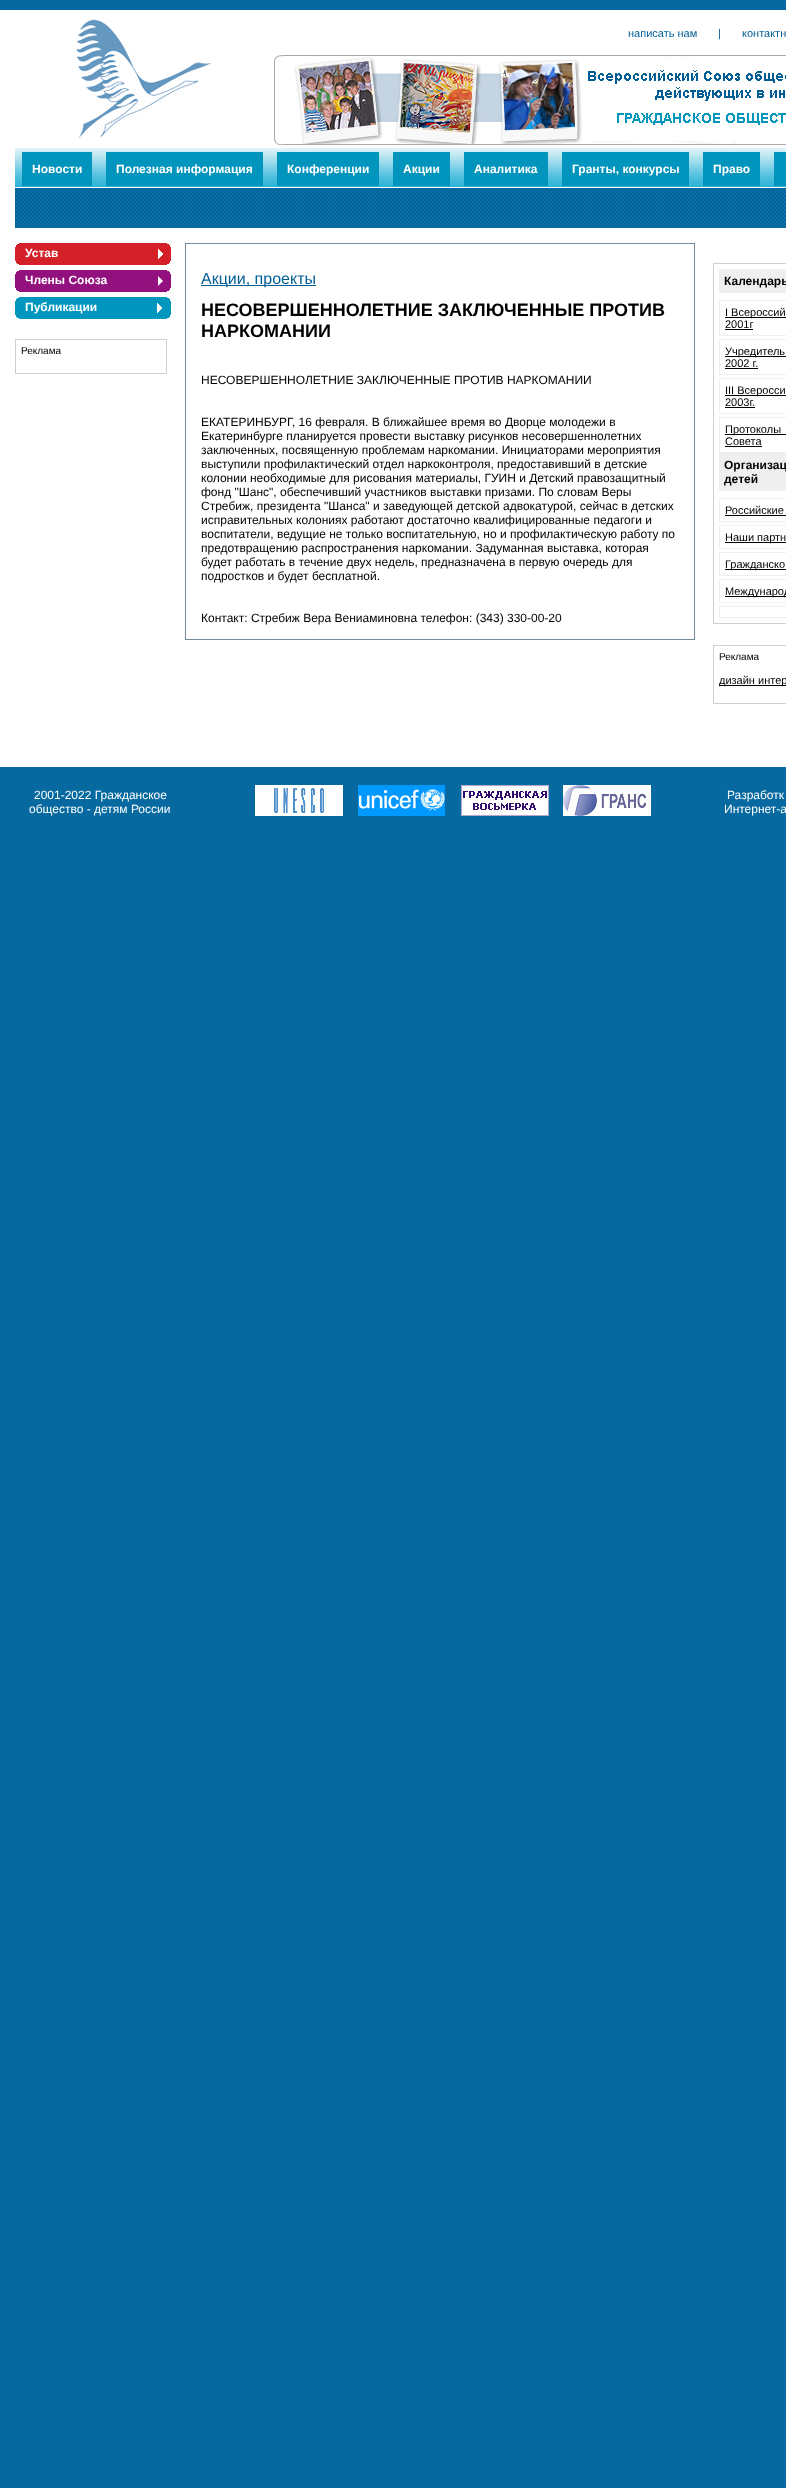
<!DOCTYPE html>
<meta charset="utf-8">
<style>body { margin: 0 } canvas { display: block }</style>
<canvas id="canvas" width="786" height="2488"></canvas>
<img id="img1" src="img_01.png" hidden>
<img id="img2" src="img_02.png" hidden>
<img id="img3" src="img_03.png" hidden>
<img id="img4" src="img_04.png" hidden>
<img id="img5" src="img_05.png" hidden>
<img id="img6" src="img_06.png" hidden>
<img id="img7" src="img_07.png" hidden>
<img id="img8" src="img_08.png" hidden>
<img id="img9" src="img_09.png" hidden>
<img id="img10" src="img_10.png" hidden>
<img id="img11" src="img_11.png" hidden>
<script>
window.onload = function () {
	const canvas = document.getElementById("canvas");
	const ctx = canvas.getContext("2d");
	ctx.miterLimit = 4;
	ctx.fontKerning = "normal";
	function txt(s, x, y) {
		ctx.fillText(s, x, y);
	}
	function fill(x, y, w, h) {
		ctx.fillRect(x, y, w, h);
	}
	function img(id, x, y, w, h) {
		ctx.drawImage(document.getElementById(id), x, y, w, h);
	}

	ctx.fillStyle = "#066AA0";
	fill(0, 0, 786, 2488);
	ctx.fillStyle = "#FFFFFF";
	fill(0, 10, 786, 757);
	img("img1", 74, 19, 138, 121);
	img("img2", 273, 55, 513, 92);
	img("img3", 15, 188, 771, 40);
	img("img4", 15, 148, 771, 39);
	ctx.fillStyle = "#0195BD";
	fill(22, 152, 70, 34);
	fill(106, 152, 157, 34);
	fill(277, 152, 102, 34);
	fill(393, 152, 57, 34);
	fill(464, 152, 84, 34);
	fill(562, 152, 127, 34);
	fill(703, 152, 57, 34);
	fill(774, 152, 12, 34);
	img("img5", 15, 243, 156, 22);
	img("img6", 15, 270, 156, 22);
	img("img7", 15, 297, 156, 22);
	ctx.strokeStyle = "#CECFCE";
	ctx.strokeRect(15.5, 339.5, 151, 34);
	ctx.strokeStyle = "#728997";
	ctx.strokeRect(185.5, 243.5, 509, 396);
	ctx.fillStyle = "#005D95";
	fill(201, 285, 115, 1);
	ctx.strokeStyle = "#CECFCE";
	ctx.strokeRect(713.5, 263.5, 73, 360);
	ctx.fillStyle = "#EFEFEF";
	fill(719, 269, 67, 24);
	ctx.strokeStyle = "#EFEFEF";
	ctx.strokeRect(719.5, 300.5, 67, 35);
	ctx.fillStyle = "#000000";
	fill(725, 317, 61, 1);
	fill(725, 329, 28, 1);
	ctx.strokeRect(719.5, 339.5, 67, 35);
	fill(725, 356, 61, 1);
	fill(725, 368, 33, 1);
	ctx.strokeRect(719.5, 378.5, 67, 35);
	fill(725, 395, 61, 1);
	fill(725, 407, 30, 1);
	ctx.strokeRect(719.5, 417.5, 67, 35);
	fill(725, 434, 61, 1);
	fill(725, 446, 37, 1);
	ctx.fillStyle = "#EFEFEF";
	fill(719, 453, 67, 38);
	ctx.strokeRect(719.5, 498.5, 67, 23);
	ctx.fillStyle = "#000000";
	fill(725, 515, 61, 1);
	ctx.strokeRect(719.5, 525.5, 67, 23);
	fill(725, 542, 61, 1);
	ctx.strokeRect(719.5, 552.5, 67, 23);
	fill(725, 569, 61, 1);
	ctx.strokeRect(719.5, 579.5, 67, 23);
	fill(725, 596, 61, 1);
	ctx.strokeRect(719.5, 606.5, 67, 11);
	ctx.strokeStyle = "#CECFCE";
	ctx.strokeRect(713.5, 645.5, 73, 58);
	fill(719, 685, 67, 1);
	img("img8", 255, 785, 88, 31);
	img("img9", 358, 785, 87, 31);
	img("img10", 461, 785, 88, 31);
	img("img11", 563, 785, 88, 31);
	ctx.font = "11px Liberation Sans";
	ctx.fillStyle = "#005E95";
	txt("написать нам", 628, 37);
	txt("|", 718, 37);
	txt("контактн", 742, 37);
	ctx.font = "bold 12px Liberation Sans";
	ctx.fillStyle = "#FFFFFF";
	txt("Новости", 32, 173);
	txt("Полезная информация", 116, 173);
	txt("Конференции", 287, 173);
	txt("Акции", 403, 173);
	txt("Аналитика", 474, 173);
	txt("Гранты, конкурсы", 572, 173);
	txt("Право", 713, 173);
	txt("Устав", 25, 257);
	txt("Члены Союза", 25, 284);
	txt("Публикации", 25, 311);
	ctx.font = "10px Liberation Sans";
	ctx.fillStyle = "#000000";
	txt("Реклама", 21, 354);
	ctx.font = "16px Liberation Sans";
	ctx.fillStyle = "#005E95";
	txt("Акции, проекты", 201, 284);
	ctx.font = "bold 18px Liberation Sans";
	ctx.fillStyle = "#000000";
	txt("НЕСОВЕРШЕННОЛЕТНИЕ ЗАКЛЮЧЕННЫЕ ПРОТИВ", 201, 316);
	txt("НАРКОМАНИИ", 201, 337);
	ctx.font = "12px Liberation Sans";
	txt("НЕСОВЕРШЕННОЛЕТНИЕ ЗАКЛЮЧЕННЫЕ ПРОТИВ НАРКОМАНИИ", 201, 384);
	txt("ЕКАТЕРИНБУРГ, 16 февраля. В ближайшее время во Дворце молодежи в", 201, 426);
	txt("Екатеринбурге планируется провести выставку рисунков несовершеннолетних", 201, 440);
	txt("заключенных, посвященную проблемам наркомании. Инициаторами мероприятия", 201, 454);
	txt("выступили профилактический отдел наркоконтроля, предоставивший в детские", 201, 468);
	txt("колонии необходимые для рисования материалы, ГУИН и Детский правозащитный", 201, 482);
	txt("фонд \"Шанс\", обеспечивший участников выставки призами. По словам Веры", 201, 496);
	txt("Стребиж, президента \"Шанса\" и заведующей детской адвокатурой, сейчас в детских", 201, 510);
	txt("исправительных колониях работают достаточно квалифицированные педагоги и", 201, 524);
	txt("воспитатели, ведущие не только воспитательную, но и профилактическую работу по", 201, 538);
	txt("предотвращению распространения наркомании. Задуманная выставка, которая", 201, 552);
	txt("будет работать в течение двух недель, предназначена в первую очередь для", 201, 566);
	txt("подростков и будет бесплатной.", 201, 580);
	txt("Контакт: Стребиж Вера Вениаминовна телефон: (343) 330-00-20", 201, 622);
	ctx.font = "bold 12px Liberation Sans";
	txt("Календарь", 724, 285);
	ctx.font = "11px Liberation Sans";
	txt("I Всероссий", 725, 316);
	txt("2001г", 725, 328);
	txt("Учредитель", 725, 355);
	txt("2002 г.", 725, 367);
	txt("III Всеросси", 725, 394);
	txt("2003г.", 725, 406);
	txt("Протоколы", 725, 433);
	txt("Совета", 725, 445);
	ctx.font = "bold 12px Liberation Sans";
	txt("Организац", 724, 469);
	txt("детей", 724, 483);
	ctx.font = "11px Liberation Sans";
	txt("Российские", 725, 514);
	txt("Наши партн", 725, 541);
	txt("Гражданско", 725, 568);
	txt("Международ", 725, 595);
	ctx.font = "10px Liberation Sans";
	txt("Реклама", 719, 660);
	ctx.font = "11px Liberation Sans";
	txt("дизайн интер", 719, 684);
	ctx.font = "12px Liberation Sans";
	ctx.fillStyle = "#FFFFFF";
	txt("2001-2022 Гражданское", 34, 799);
	txt("общество - детям России", 29, 813);
	txt("Разработк", 727, 799);
	txt("Интернет-а", 724, 813);
};
</script>
